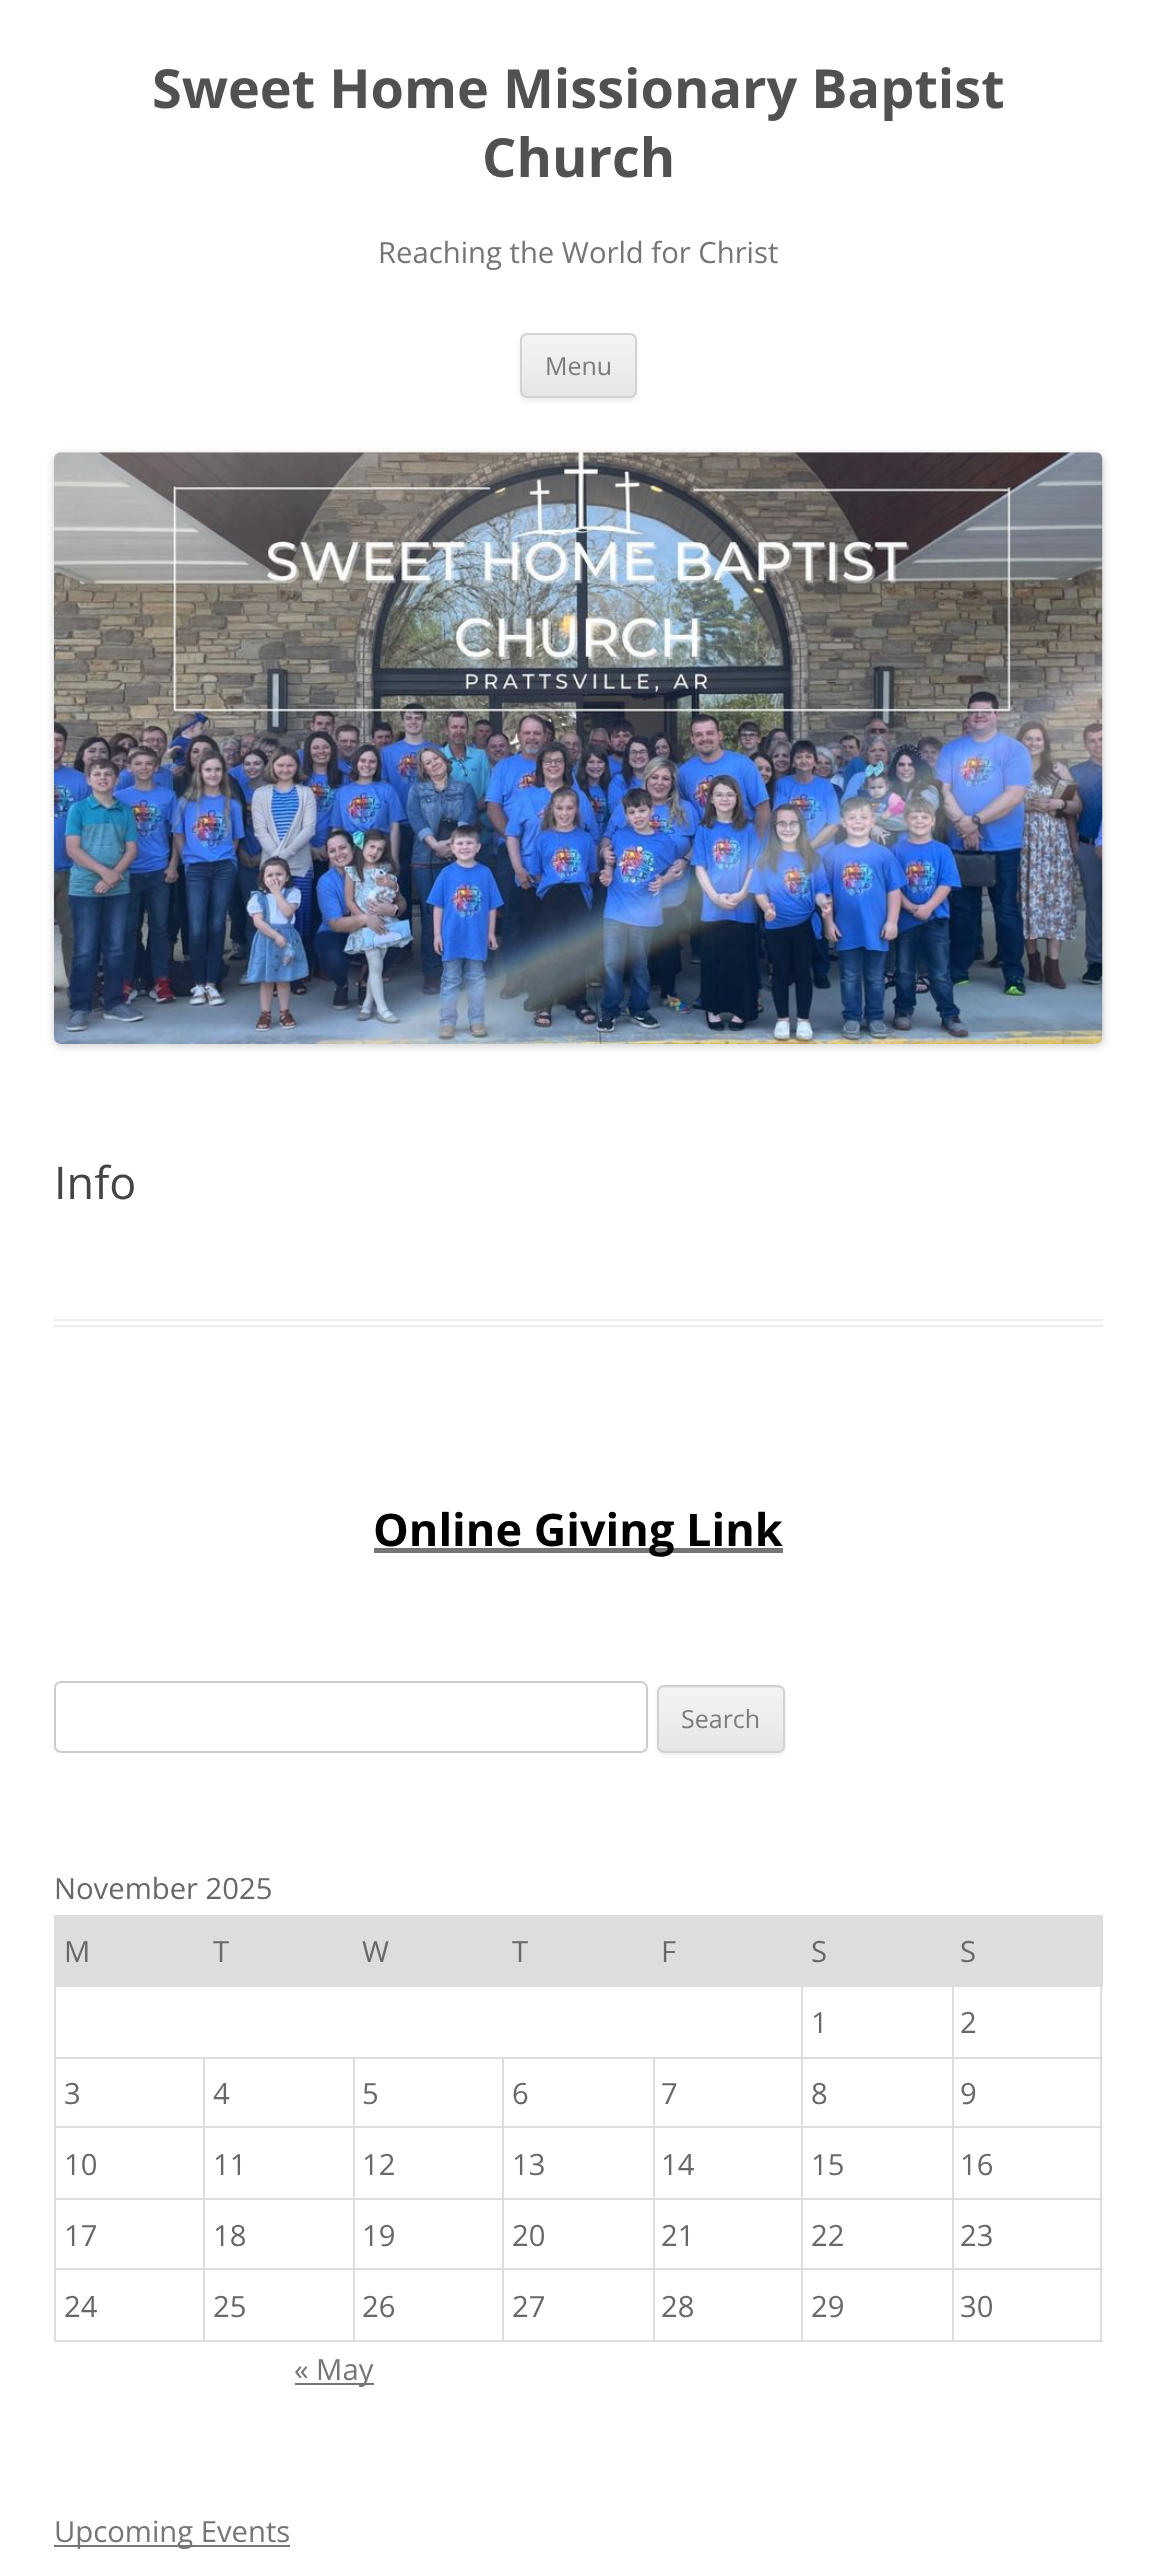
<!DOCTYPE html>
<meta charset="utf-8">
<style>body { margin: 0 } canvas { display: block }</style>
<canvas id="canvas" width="1156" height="2559"></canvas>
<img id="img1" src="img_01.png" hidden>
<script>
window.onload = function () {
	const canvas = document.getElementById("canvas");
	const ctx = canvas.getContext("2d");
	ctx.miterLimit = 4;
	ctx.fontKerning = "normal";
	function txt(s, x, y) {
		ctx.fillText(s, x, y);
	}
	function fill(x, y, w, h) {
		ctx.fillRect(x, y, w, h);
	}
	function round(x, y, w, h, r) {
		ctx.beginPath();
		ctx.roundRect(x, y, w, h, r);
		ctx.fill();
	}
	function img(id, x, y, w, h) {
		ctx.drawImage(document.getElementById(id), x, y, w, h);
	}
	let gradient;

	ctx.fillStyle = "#FFFFFF";
	fill(0, 0, 1156, 2559);
	ctx.fillStyle = "rgba(64, 64, 64, 0.1)";
	ctx.filter = "blur(2px)";
	ctx.beginPath();
	ctx.roundRect(520, 335, 117, 66, 7);
	ctx.fill();
	ctx.filter = "none";
	ctx.save();
	ctx.beginPath();
	ctx.roundRect(520, 333, 117, 65, 7);
	ctx.clip();
	gradient = ctx.createLinearGradient(578, 335, 578, 396);
	gradient.addColorStop(0, "#F4F4F4");
	gradient.addColorStop(1, "#E6E6E6");
	ctx.fillStyle = gradient;
	fill(520, 335, 117, 61);
	ctx.restore();
	ctx.beginPath();
	ctx.roundRect(521, 334, 115, 63, 6);
	ctx.strokeStyle = "#D2D2D2";
	ctx.lineWidth = 2;
	ctx.stroke();
	ctx.fillStyle = "rgba(0, 0, 0, 0.2)";
	ctx.filter = "blur(4.5px)";
	ctx.beginPath();
	ctx.roundRect(54, 455, 1049, 591, 7);
	ctx.fill();
	ctx.filter = "none";
	img("img1", 54, 452, 1049, 592);
	ctx.fillStyle = "#EDEDED";
	fill(54, 1319, 1049, 2);
	fill(54, 1325, 1049, 2);
	ctx.fillStyle = "#757575";
	fill(374, 1548, 409, 5);
	ctx.beginPath();
	ctx.roundRect(55, 1682, 592, 70, 6);
	ctx.strokeStyle = "#CCCCCC";
	ctx.stroke();
	ctx.fillStyle = "rgba(64, 64, 64, 0.1)";
	ctx.filter = "blur(2px)";
	ctx.beginPath();
	ctx.roundRect(657, 1688, 128, 67, 7);
	ctx.fill();
	ctx.filter = "none";
	ctx.fillStyle = "#E6E6E6";
	round(657, 1685, 128, 68, 7);
	ctx.save();
	ctx.beginPath();
	ctx.roundRect(657, 1685, 128, 68, 7);
	ctx.clip();
	gradient = ctx.createLinearGradient(721, 1688, 721, 1751);
	gradient.addColorStop(0, "#F4F4F4");
	gradient.addColorStop(1, "#E6E6E6");
	ctx.fillStyle = gradient;
	fill(657, 1688, 128, 63);
	ctx.restore();
	ctx.beginPath();
	ctx.roundRect(658, 1686, 126, 66, 6);
	ctx.strokeStyle = "#D2D2D2";
	ctx.stroke();
	ctx.fillStyle = "#DDDDDD";
	fill(56, 1917, 149, 68);
	fill(54, 1915, 151, 2);
	fill(952, 2057, 151, 2);
	fill(952, 2126, 151, 2);
	fill(952, 2198, 151, 2);
	fill(952, 2268, 151, 2);
	fill(1100, 2268, 2, 74);
	fill(952, 2340, 151, 2);
	fill(952, 2268, 2, 74);
	fill(801, 2268, 153, 2);
	fill(952, 2198, 2, 72);
	fill(801, 2198, 153, 2);
	fill(952, 2126, 2, 75);
	fill(801, 2126, 153, 2);
	fill(952, 2057, 2, 72);
	fill(801, 2057, 153, 2);
	fill(801, 2340, 153, 2);
	fill(801, 2268, 2, 74);
	fill(653, 2268, 150, 2);
	fill(801, 2198, 2, 72);
	fill(653, 2198, 150, 2);
	fill(801, 2126, 2, 75);
	fill(653, 2126, 150, 2);
	fill(801, 2057, 2, 72);
	fill(653, 2057, 150, 2);
	fill(801, 1985, 2, 74);
	fill(54, 1985, 749, 2);
	fill(653, 2340, 150, 2);
	fill(653, 2268, 2, 74);
	fill(502, 2268, 153, 2);
	fill(653, 2198, 2, 72);
	fill(502, 2198, 153, 2);
	fill(653, 2126, 2, 75);
	fill(502, 2126, 153, 2);
	fill(653, 2057, 2, 72);
	fill(502, 2057, 153, 2);
	fill(502, 2340, 153, 2);
	fill(502, 2268, 2, 74);
	fill(353, 2268, 151, 2);
	fill(502, 2198, 2, 72);
	fill(353, 2198, 151, 2);
	fill(502, 2126, 2, 75);
	fill(353, 2126, 151, 2);
	fill(502, 2057, 2, 72);
	fill(353, 2057, 151, 2);
	fill(353, 2340, 151, 2);
	fill(353, 2268, 2, 74);
	fill(203, 2268, 153, 2);
	fill(353, 2198, 2, 72);
	fill(203, 2198, 153, 2);
	fill(353, 2126, 2, 75);
	fill(203, 2126, 153, 2);
	fill(353, 2057, 2, 72);
	fill(203, 2057, 153, 2);
	fill(203, 2340, 153, 2);
	fill(203, 2268, 2, 74);
	fill(54, 2268, 151, 2);
	fill(203, 2198, 2, 72);
	fill(54, 2198, 151, 2);
	fill(203, 2126, 2, 75);
	fill(54, 2126, 151, 2);
	fill(203, 2057, 2, 72);
	fill(54, 2057, 151, 2);
	fill(54, 2340, 151, 2);
	fill(54, 2268, 2, 74);
	fill(54, 2198, 2, 72);
	fill(54, 2126, 2, 75);
	fill(54, 2057, 2, 72);
	fill(54, 1985, 2, 74);
	fill(54, 1915, 2, 72);
	fill(205, 1915, 598, 70);
	fill(803, 1915, 300, 72);
	fill(952, 1985, 2, 74);
	fill(1100, 2198, 2, 72);
	fill(1100, 2126, 2, 75);
	fill(1100, 1985, 2, 144);
	ctx.fillStyle = "#757575";
	fill(295, 2383, 79, 2);
	fill(54, 2545, 236, 2);
	ctx.font = "bold 54px Open Sans";
	ctx.fillStyle = "#515151";
	txt("Sweet Home Missionary Baptist", 152, 108);
	txt("Church", 482, 177);
	ctx.font = "29.25px Open Sans";
	ctx.fillStyle = "#757575";
	txt("Reaching the World for Christ", 378, 263);
	ctx.font = "25px Open Sans";
	ctx.fillStyle = "#7C7C7C";
	txt("Menu", 545, 375);
	ctx.font = "45px Open Sans";
	ctx.fillStyle = "#444444";
	txt("Info", 54, 1199);
	ctx.font = "bold 45px Open Sans";
	ctx.fillStyle = "#000000";
	txt("Online Giving Link", 373, 1546);
	ctx.font = "25px Open Sans";
	ctx.fillStyle = "#7C7C7C";
	txt("Search", 681, 1728);
	ctx.font = "29.25px Open Sans";
	ctx.fillStyle = "#686868";
	txt("November 2025", 54, 1899);
	txt("M", 64, 1962);
	txt("T", 213, 1962);
	txt("W", 362, 1962);
	txt("T", 512, 1962);
	txt("F", 661, 1962);
	txt("S", 811, 1962);
	txt("S", 960, 1962);
	txt("1", 811, 2033);
	txt("2", 960, 2033);
	txt("3", 64, 2104);
	txt("4", 213, 2104);
	txt("5", 362, 2104);
	txt("6", 512, 2104);
	txt("7", 661, 2104);
	txt("8", 811, 2104);
	txt("9", 960, 2104);
	txt("10", 64, 2175);
	txt("11", 213, 2175);
	txt("12", 362, 2175);
	txt("13", 512, 2175);
	txt("14", 661, 2175);
	txt("15", 811, 2175);
	txt("16", 960, 2175);
	txt("17", 64, 2246);
	txt("18", 213, 2246);
	txt("19", 362, 2246);
	txt("20", 512, 2246);
	txt("21", 661, 2246);
	txt("22", 811, 2246);
	txt("23", 960, 2246);
	txt("24", 64, 2317);
	txt("25", 213, 2317);
	txt("26", 362, 2317);
	txt("27", 512, 2317);
	txt("28", 661, 2317);
	txt("29", 811, 2317);
	txt("30", 960, 2317);
	ctx.fillStyle = "#757575";
	txt("« May", 294, 2380);
	txt("Upcoming Events", 54, 2542);
};
</script>
